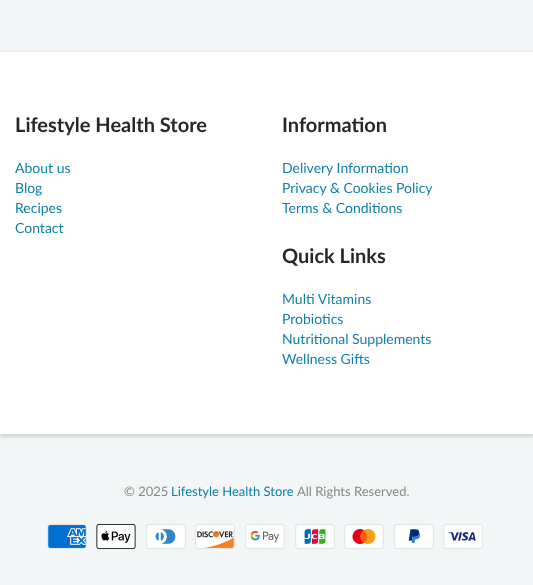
<!DOCTYPE html>
<meta charset="utf-8">
<style>body { margin: 0 } canvas { display: block }</style>
<canvas id="canvas" width="533" height="585"></canvas>
<img id="img1" src="img_01.png" hidden>
<img id="img2" src="img_02.png" hidden>
<img id="img3" src="img_03.png" hidden>
<img id="img4" src="img_04.png" hidden>
<img id="img5" src="img_05.png" hidden>
<img id="img6" src="img_06.png" hidden>
<img id="img7" src="img_07.png" hidden>
<img id="img8" src="img_08.png" hidden>
<img id="img9" src="img_09.png" hidden>
<script>
window.onload = function () {
	const canvas = document.getElementById("canvas");
	const ctx = canvas.getContext("2d");
	ctx.miterLimit = 4;
	ctx.fontKerning = "normal";
	function txt(s, x, y) {
		ctx.fillText(s, x, y);
	}
	function fill(x, y, w, h) {
		ctx.fillRect(x, y, w, h);
	}
	function img(id, x, y, w, h) {
		ctx.drawImage(document.getElementById(id), x, y, w, h);
	}

	ctx.fillStyle = "#FFFFFF";
	fill(0, 0, 533, 585);
	ctx.fillStyle = "#F3F6F6";
	fill(0, 0, 533, 51);
	fill(0, 434, 533, 151);
	ctx.save();
	ctx.beginPath();
	ctx.rect(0, 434, 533, 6);
	ctx.clip();
	ctx.fillStyle = "#D1D7D7";
	ctx.filter = "blur(1.5px)";
	ctx.beginPath();
	ctx.rect(0, 54, 533, 383);
	ctx.fill();
	ctx.filter = "none";
	ctx.restore();
	ctx.fillStyle = "#ECEFEF";
	fill(0, 51, 533, 1);
	img("img1", 47, 524, 40, 25);
	img("img2", 96, 524, 40, 25);
	img("img3", 146, 524, 40, 25);
	img("img4", 195, 524, 40, 25);
	img("img5", 245, 524, 40, 25);
	img("img6", 295, 524, 40, 25);
	img("img7", 344, 524, 40, 25);
	img("img8", 394, 524, 40, 25);
	img("img9", 443, 524, 40, 25);
	ctx.font = "bold 20px Lato";
	ctx.fillStyle = "#282727";
	txt("Lifestyle Health Store", 15, 132);
	ctx.font = "14px Lato";
	ctx.fillStyle = "#107FA8";
	txt("About us", 15, 173);
	txt("Blog", 15, 193);
	txt("Recipes", 15, 213);
	txt("Contact", 15, 233);
	ctx.font = "bold 20px Lato";
	ctx.fillStyle = "#282727";
	txt("Information", 282, 132);
	ctx.font = "14px Lato";
	ctx.fillStyle = "#107FA8";
	txt("Delivery Information", 282, 173);
	txt("Privacy & Cookies Policy", 282, 193);
	txt("Terms & Conditions", 282, 213);
	ctx.font = "bold 20px Lato";
	ctx.fillStyle = "#282727";
	txt("Quick Links", 282, 263);
	ctx.font = "14px Lato";
	ctx.fillStyle = "#107FA8";
	txt("Multi Vitamins", 282, 304);
	txt("Probiotics", 282, 324);
	txt("Nutritional Supplements", 282, 344);
	txt("Wellness Gifts", 282, 364);
	ctx.font = "13px Lato";
	ctx.fillStyle = "#898989";
	txt("© 2025", 124, 496);
	ctx.fillStyle = "#107FA8";
	txt("Lifestyle Health Store", 171, 496);
	ctx.fillStyle = "#898989";
	txt("All Rights Reserved.", 297, 496);
};
</script>
